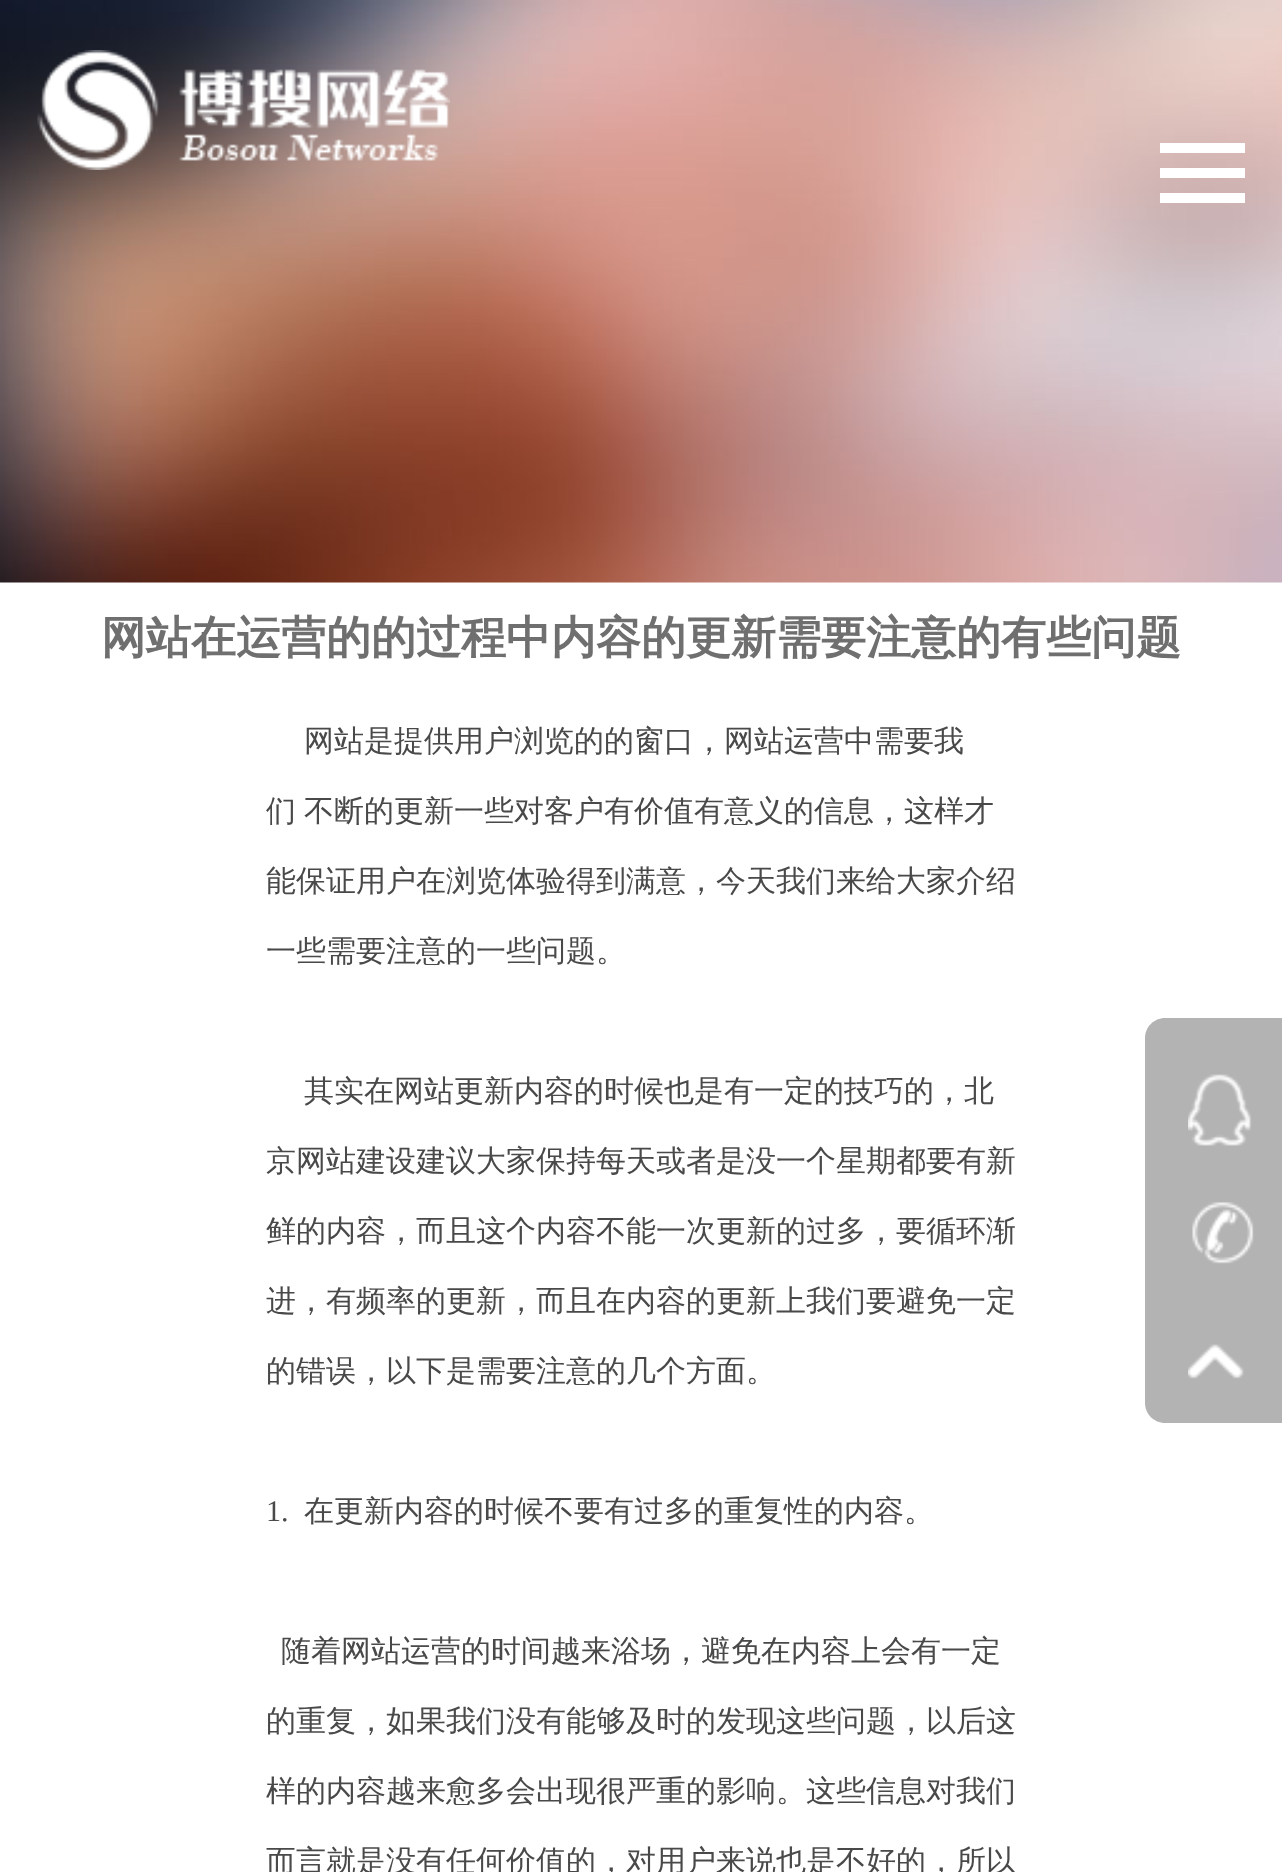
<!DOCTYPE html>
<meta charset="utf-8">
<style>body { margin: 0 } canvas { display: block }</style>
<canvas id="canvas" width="1282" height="1872"></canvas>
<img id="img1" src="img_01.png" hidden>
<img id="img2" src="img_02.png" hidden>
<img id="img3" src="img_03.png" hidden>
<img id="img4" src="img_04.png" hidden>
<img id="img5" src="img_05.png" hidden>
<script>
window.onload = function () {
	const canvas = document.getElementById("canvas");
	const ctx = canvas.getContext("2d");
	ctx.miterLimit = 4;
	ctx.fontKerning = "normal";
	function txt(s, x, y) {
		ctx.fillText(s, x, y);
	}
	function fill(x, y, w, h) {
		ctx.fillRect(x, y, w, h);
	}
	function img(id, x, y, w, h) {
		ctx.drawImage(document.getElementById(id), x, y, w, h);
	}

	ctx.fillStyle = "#FFFFFF";
	fill(0, 0, 1282, 1872);
	img("img1", 0, 0, 1282, 583);
	img("img2", 37, 50, 413, 120);
	fill(1160, 168, 85, 10);
	fill(1160, 143, 85, 10);
	fill(1160, 193, 85, 10);
	ctx.fillStyle = "#B3B3B3";
	ctx.beginPath();
	ctx.moveTo(1165, 1018);
	ctx.lineTo(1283, 1018);
	ctx.lineTo(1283, 1423);
	ctx.lineTo(1165, 1423);
	ctx.bezierCurveTo(1154, 1423, 1145, 1414, 1145, 1403);
	ctx.lineTo(1145, 1038);
	ctx.bezierCurveTo(1145, 1027, 1154, 1018, 1165, 1018);
	ctx.closePath();
	ctx.fill();
	img("img3", 1188, 1074, 64, 72);
	img("img4", 1192, 1202, 62, 62);
	img("img5", 1188, 1344, 56, 35);
	ctx.font = "bold 45px WenQuanYi Zen Hei";
	ctx.fillStyle = "#6F6F6F";
	txt("网站在运营的的过程中内容的更新需要注意的有些问题", 101, 653);
	ctx.font = "500 30px WenQuanYi Zen Hei";
	ctx.fillStyle = "#494949";
	txt("网站是提供用户浏览的的窗口，网站运营中需要我", 304, 751);
	txt("们", 266, 821);
	txt("不断的更新一些对客户有价值有意义的信息，这样才", 304, 821);
	txt("能保证用户在浏览体验得到满意，今天我们来给大家介绍", 266, 891);
	txt("一些需要注意的一些问题。", 266, 961);
	txt("其实在网站更新内容的时候也是有一定的技巧的，北", 304, 1101);
	txt("京网站建设建议大家保持每天或者是没一个星期都要有新", 266, 1171);
	txt("鲜的内容，而且这个内容不能一次更新的过多，要循环渐", 266, 1241);
	txt("进，有频率的更新，而且在内容的更新上我们要避免一定", 266, 1311);
	txt("的错误，以下是需要注意的几个方面。", 266, 1381);
	ctx.font = "30px Liberation Serif";
	txt("1.", 266, 1521);
	ctx.font = "500 30px WenQuanYi Zen Hei";
	txt("在更新内容的时候不要有过多的重复性的内容。", 304, 1521);
	txt("随着网站运营的时间越来浴场，避免在内容上会有一定", 281, 1661);
	txt("的重复，如果我们没有能够及时的发现这些问题，以后这", 266, 1731);
	txt("样的内容越来愈多会出现很严重的影响。这些信息对我们", 266, 1801);
	txt("而言就是没有任何价值的，对用户来说也是不好的，所以", 266, 1871);
};
</script>
